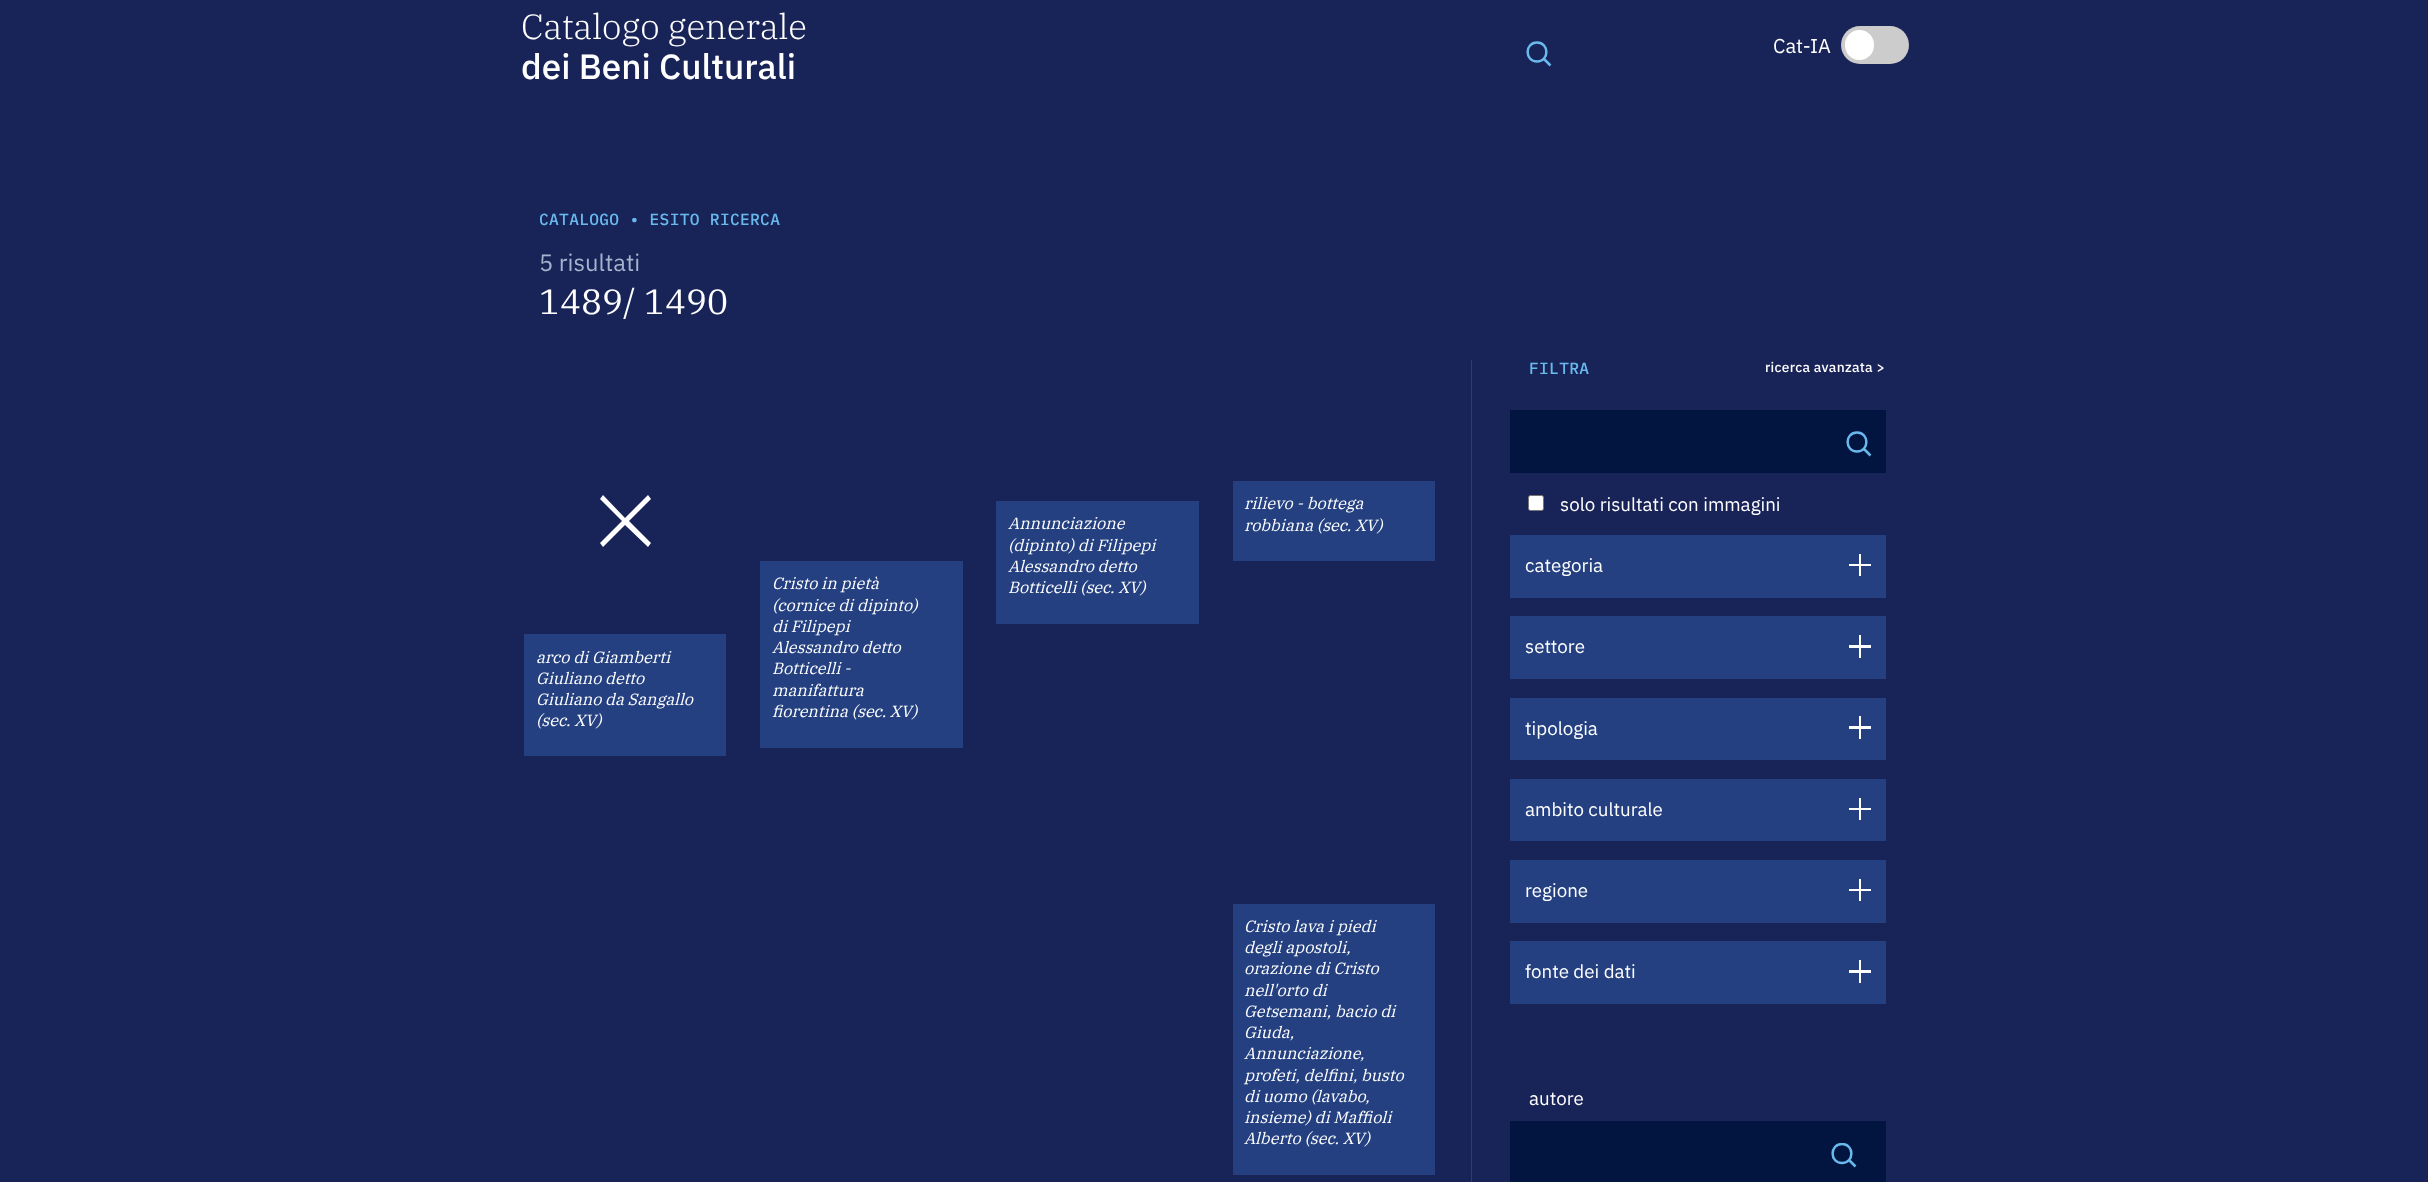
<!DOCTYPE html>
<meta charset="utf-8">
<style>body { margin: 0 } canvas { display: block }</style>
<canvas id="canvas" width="2428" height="1182"></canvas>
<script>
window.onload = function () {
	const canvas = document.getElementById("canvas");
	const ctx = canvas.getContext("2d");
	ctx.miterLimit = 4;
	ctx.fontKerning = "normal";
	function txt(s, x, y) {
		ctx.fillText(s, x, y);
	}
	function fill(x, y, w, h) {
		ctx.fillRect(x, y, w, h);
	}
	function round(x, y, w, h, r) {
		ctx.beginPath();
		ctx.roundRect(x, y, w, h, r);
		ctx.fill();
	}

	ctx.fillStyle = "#182358";
	fill(0, 0, 2428, 1182);
	ctx.beginPath();
	ctx.moveTo(1537, 61.5);
	ctx.bezierCurveTo(1549.5, 61.5, 1549.5, 42.5, 1537, 42.5);
	ctx.bezierCurveTo(1524.5, 42.5, 1524.5, 61.5, 1537, 61.5);
	ctx.closePath();
	ctx.moveTo(1544.5, 59.5);
	ctx.lineTo(1550.5, 65.5);
	ctx.strokeStyle = "#69B9EC";
	ctx.lineWidth = 2.5;
	ctx.stroke();
	ctx.fillStyle = "#CCCCCC";
	round(1841, 26, 68, 38, 19);
	ctx.fillStyle = "#FFFFFF";
	round(1845, 30, 29, 30, 14.5);
	ctx.fillStyle = "#2A3F71";
	fill(1471, 360, 1, 822);
	ctx.fillStyle = "#244080";
	fill(996, 501, 203, 123);
	fill(1233, 481, 202, 80);
	ctx.fillStyle = "#FFFFFF";
	ctx.beginPath();
	ctx.moveTo(651, 543);
	ctx.lineTo(629, 521);
	ctx.lineTo(651, 499);
	ctx.lineTo(648, 495);
	ctx.lineTo(625, 518);
	ctx.lineTo(603, 495);
	ctx.lineTo(600, 499);
	ctx.lineTo(622, 521);
	ctx.lineTo(600, 543);
	ctx.lineTo(603, 547);
	ctx.lineTo(625, 525);
	ctx.lineTo(648, 547);
	ctx.closePath();
	ctx.fill();
	ctx.fillStyle = "#244080";
	fill(524, 634, 202, 122);
	fill(760, 561, 203, 187);
	fill(1233, 904, 202, 271);
	ctx.fillStyle = "#021440";
	fill(1510, 410, 376, 63);
	ctx.beginPath();
	ctx.moveTo(1857, 451.5);
	ctx.bezierCurveTo(1869.5, 451.5, 1869.5, 432.5, 1857, 432.5);
	ctx.bezierCurveTo(1844.5, 432.5, 1844.5, 451.5, 1857, 451.5);
	ctx.closePath();
	ctx.moveTo(1864.5, 449.5);
	ctx.lineTo(1870.5, 455.5);
	ctx.stroke();
	ctx.fillStyle = "#FFFFFF";
	ctx.beginPath();
	ctx.roundRect(1528.5, 495.5, 15, 15, 2);
	ctx.fill();
	ctx.strokeStyle = "#767676";
	ctx.lineWidth = 1;
	ctx.stroke();
	ctx.fillStyle = "#244080";
	fill(1510, 535, 376, 63);
	ctx.fillStyle = "#FFFFFF";
	fill(1849, 564, 22, 2);
	fill(1859, 554, 2, 22);
	ctx.fillStyle = "#244080";
	fill(1510, 616, 376, 63);
	ctx.fillStyle = "#FFFFFF";
	fill(1849, 645, 22, 3);
	fill(1859, 635, 2, 23);
	ctx.fillStyle = "#244080";
	fill(1510, 698, 376, 62);
	ctx.fillStyle = "#FFFFFF";
	fill(1849, 726, 22, 3);
	fill(1859, 716, 2, 23);
	ctx.fillStyle = "#244080";
	fill(1510, 779, 376, 62);
	ctx.fillStyle = "#FFFFFF";
	fill(1849, 808, 22, 2);
	fill(1859, 798, 2, 22);
	ctx.fillStyle = "#244080";
	fill(1510, 860, 376, 63);
	ctx.fillStyle = "#FFFFFF";
	fill(1849, 889, 22, 2);
	fill(1859, 879, 2, 22);
	ctx.fillStyle = "#244080";
	fill(1510, 941, 376, 63);
	ctx.fillStyle = "#FFFFFF";
	fill(1849, 970, 22, 3);
	fill(1859, 960, 2, 23);
	ctx.fillStyle = "#021440";
	fill(1510, 1121, 376, 61);
	ctx.save();
	ctx.beginPath();
	ctx.rect(1831, 1143, 25, 25);
	ctx.clip();
	ctx.beginPath();
	ctx.moveTo(1842, 1163);
	ctx.bezierCurveTo(1854.5, 1163, 1854.5, 1144, 1842, 1144);
	ctx.bezierCurveTo(1829.5, 1144, 1829.5, 1163, 1842, 1163);
	ctx.closePath();
	ctx.strokeStyle = "#69B9EC";
	ctx.lineWidth = 2.5;
	ctx.stroke();
	ctx.restore();
	ctx.beginPath();
	ctx.moveTo(1849.5, 1160.5);
	ctx.lineTo(1855.5, 1166.5);
	ctx.strokeStyle = "#69B9EC";
	ctx.lineWidth = 2.5;
	ctx.stroke();
	ctx.font = "300 35px IBM Plex Serif";
	ctx.fillStyle = "#FFFFFF";
	txt("Catalogo generale", 521, 39);
	ctx.font = "500 35px IBM Plex Sans";
	txt("dei Beni Culturali", 521, 79);
	ctx.font = "20px IBM Plex Sans";
	txt("Cat-IA", 1773, 53);
	ctx.letterSpacing = "0.3px";
	ctx.font = "500 16.25px IBM Plex Mono";
	ctx.fillStyle = "#69B9EC";
	txt("CATALOGO • ESITO RICERCA", 539, 225);
	ctx.letterSpacing = "0px";
	ctx.font = "23.75px IBM Plex Sans";
	ctx.fillStyle = "#A7B2CC";
	txt("5 risultati", 539, 271);
	ctx.font = "35px IBM Plex Serif";
	ctx.fillStyle = "#FFFFFF";
	txt("1489/ 1490", 539, 314);
	ctx.font = "italic 16.25px IBM Plex Serif";
	txt("Annunciazione", 1008, 529);
	txt("(dipinto) di Filipepi", 1008, 551);
	txt("Alessandro detto", 1008, 572);
	txt("Botticelli (sec. XV)", 1008, 593);
	txt("rilievo - bottega", 1244, 509);
	txt("robbiana (sec. XV)", 1244, 531);
	txt("arco di Giamberti", 536, 663);
	txt("Giuliano detto", 536, 684);
	txt("Giuliano da Sangallo", 536, 705);
	txt("(sec. XV)", 536, 726);
	txt("Cristo in pietà", 772, 589);
	txt("(cornice di dipinto)", 772, 611);
	txt("di Filipepi", 772, 632);
	txt("Alessandro detto", 772, 653);
	txt("Botticelli -", 772, 674);
	txt("manifattura", 772, 696);
	txt("fiorentina (sec. XV)", 772, 717);
	txt("Cristo lava i piedi", 1244, 932);
	txt("degli apostoli,", 1244, 953);
	txt("orazione di Cristo", 1244, 974);
	txt("nell'orto di", 1244, 996);
	txt("Getsemani, bacio di", 1244, 1017);
	txt("Giuda,", 1244, 1038);
	txt("Annunciazione,", 1244, 1059);
	txt("profeti, delfini, busto", 1244, 1081);
	txt("di uomo (lavabo,", 1244, 1102);
	txt("insieme) di Maffioli", 1244, 1123);
	txt("Alberto (sec. XV)", 1244, 1144);
	ctx.letterSpacing = "0.3px";
	ctx.font = "500 16.25px IBM Plex Mono";
	ctx.fillStyle = "#69B9EC";
	txt("FILTRA", 1529, 374);
	ctx.font = "500 13.75px IBM Plex Sans";
	ctx.fillStyle = "#FFFFFF";
	txt("ricerca avanzata >", 1765, 372);
	ctx.letterSpacing = "0px";
	ctx.font = "18.75px IBM Plex Sans";
	txt("solo risultati con immagini", 1560, 511);
	txt("categoria", 1525, 572);
	txt("settore", 1525, 653);
	txt("tipologia", 1525, 735);
	txt("ambito culturale", 1525, 816);
	txt("regione", 1525, 897);
	txt("fonte dei dati", 1525, 978);
	txt("autore", 1529, 1105);
};
</script>
